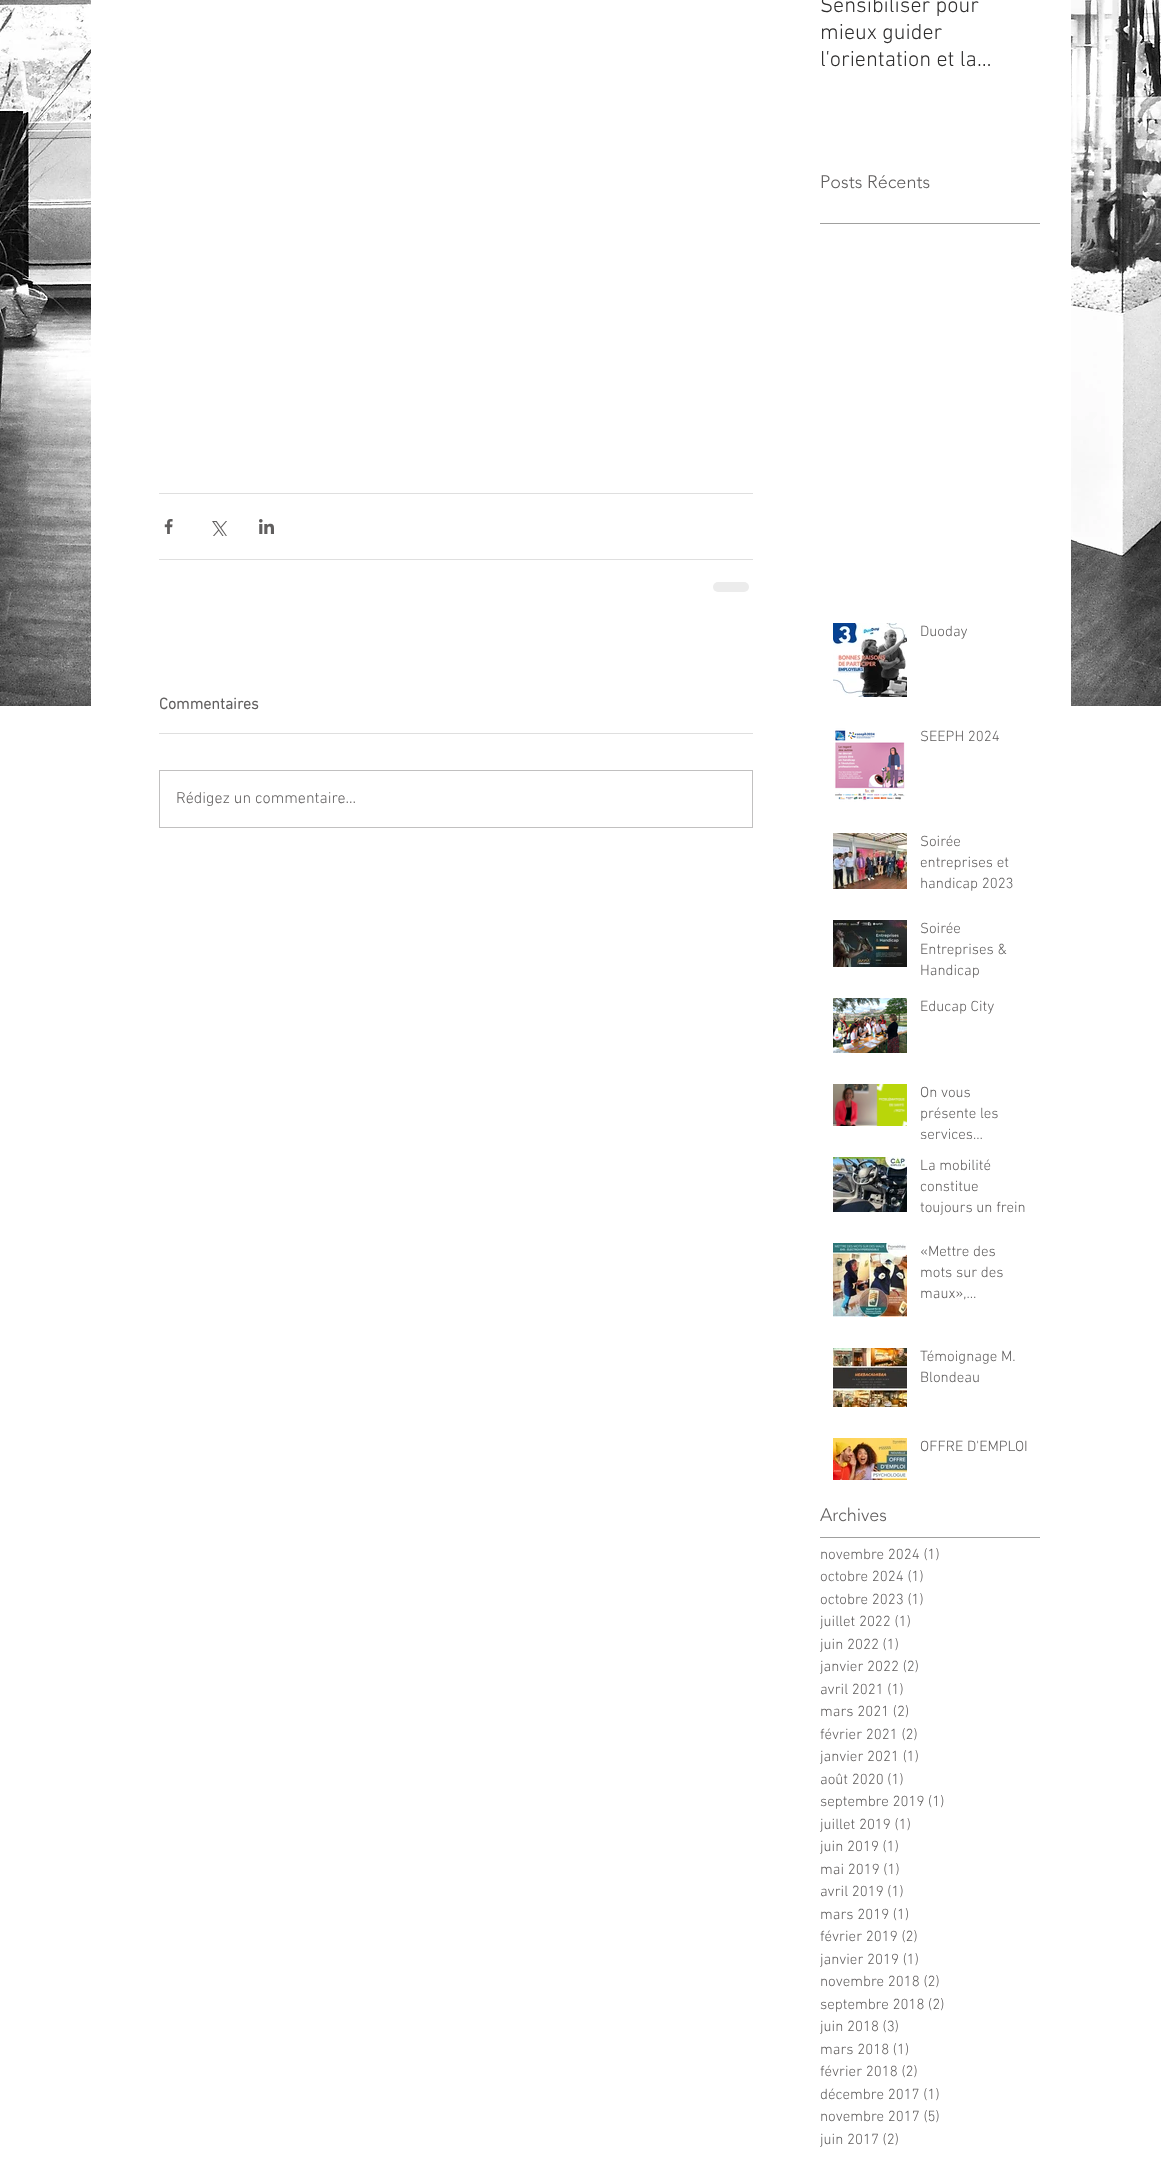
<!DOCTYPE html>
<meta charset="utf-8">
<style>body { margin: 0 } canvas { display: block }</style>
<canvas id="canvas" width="1161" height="2184"></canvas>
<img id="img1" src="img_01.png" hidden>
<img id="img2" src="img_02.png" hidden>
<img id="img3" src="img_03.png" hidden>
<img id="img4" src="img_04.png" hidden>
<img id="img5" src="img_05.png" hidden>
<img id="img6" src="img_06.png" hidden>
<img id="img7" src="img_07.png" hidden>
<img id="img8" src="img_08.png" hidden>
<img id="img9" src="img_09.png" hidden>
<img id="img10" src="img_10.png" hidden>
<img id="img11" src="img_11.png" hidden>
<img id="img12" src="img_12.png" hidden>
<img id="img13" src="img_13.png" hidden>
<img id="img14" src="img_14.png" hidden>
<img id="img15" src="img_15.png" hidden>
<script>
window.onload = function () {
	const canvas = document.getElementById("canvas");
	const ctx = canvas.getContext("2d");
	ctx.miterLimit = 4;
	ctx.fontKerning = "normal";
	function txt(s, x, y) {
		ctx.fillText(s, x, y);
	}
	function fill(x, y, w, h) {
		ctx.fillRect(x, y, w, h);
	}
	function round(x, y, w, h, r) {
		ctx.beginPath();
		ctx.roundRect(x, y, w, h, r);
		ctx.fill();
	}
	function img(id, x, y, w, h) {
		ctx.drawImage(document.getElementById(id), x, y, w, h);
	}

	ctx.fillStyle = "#FFFFFF";
	fill(0, 0, 1161, 2184);
	img("img1", 0, 0, 1161, 706);
	fill(91, 0, 980, 706);
	ctx.fillStyle = "#A0A09F";
	fill(820, 223, 220, 1);
	ctx.fillStyle = "#DFDFDF";
	fill(159, 493, 594, 1);
	img("img2", 164, 519, 9, 15);
	img("img3", 212, 521, 15, 15);
	img("img4", 259, 519, 15, 15);
	fill(159, 559, 594, 1);
	ctx.fillStyle = "#ECECEC";
	round(713, 582, 36, 10, 5);
	ctx.fillStyle = "#DFDFDF";
	fill(159, 733, 594, 1);
	ctx.strokeStyle = "#C1C0C0";
	ctx.strokeRect(159.5, 770.5, 593, 57);
	img("img5", 833, 623, 74, 74);
	img("img6", 833, 728, 74, 74);
	img("img7", 833, 833, 74, 56);
	img("img8", 833, 920, 74, 47);
	img("img9", 833, 998, 74, 55);
	img("img10", 833, 1084, 74, 42);
	img("img11", 906, 1084, 1, 42);
	img("img12", 833, 1157, 74, 55);
	img("img13", 833, 1243, 74, 74);
	img("img14", 833, 1348, 74, 59);
	img("img15", 833, 1438, 74, 42);
	ctx.fillStyle = "#A0A09F";
	fill(820, 1537, 220, 1);
	ctx.font = "300 22px 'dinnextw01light'";
	ctx.fillStyle = "#2F2E2E";
	txt("Sensibiliser pour", 820, 12);
	txt("mieux guider", 820, 39);
	txt("l'orientation et la…", 820, 66);
	ctx.font = "300 18px 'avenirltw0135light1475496'";
	ctx.fillStyle = "#605E5E";
	txt("Posts Récents", 820, 188);
	ctx.font = "bold 16px 'dinnextw01light'";
	txt("Commentaires", 159, 709);
	ctx.font = "300 16px 'dinnextw01light'";
	txt("Rédigez un commentaire...", 176, 803);
	ctx.font = "300 15px 'dinnextw01light'";
	txt("Duoday", 920, 636);
	txt("SEEPH 2024", 920, 741);
	txt("Soirée", 920, 846);
	txt("entreprises et", 920, 867);
	txt("handicap 2023", 920, 888);
	txt("Soirée", 920, 933);
	txt("Entreprises &", 920, 954);
	txt("Handicap", 920, 975);
	txt("Educap City", 920, 1011);
	txt("On vous", 920, 1097);
	txt("présente les", 920, 1118);
	ctx.save();
	ctx.beginPath();
	ctx.rect(920, 1083, 108, 56);
	ctx.clip();
	txt("services…", 920, 1139);
	ctx.restore();
	txt("La mobilité", 920, 1170);
	txt("constitue", 920, 1191);
	txt("toujours un frein", 920, 1212);
	txt("«Mettre des", 920, 1256);
	txt("mots sur des", 920, 1277);
	txt("maux»,…", 920, 1298);
	txt("Témoignage M.", 920, 1361);
	txt("Blondeau", 920, 1382);
	txt("OFFRE D'EMPLOI", 920, 1451);
	ctx.font = "300 18px 'avenirltw0135light1475496'";
	txt("Archives", 820, 1521);
	ctx.font = "300 15px 'dinnextw01light'";
	txt("novembre 2024 (1)", 820, 1559);
	txt("octobre 2024 (1)", 820, 1581);
	txt("octobre 2023 (1)", 820, 1604);
	txt("juillet 2022 (1)", 820, 1626);
	txt("juin 2022 (1)", 820, 1649);
	txt("janvier 2022 (2)", 820, 1671);
	txt("avril 2021 (1)", 820, 1694);
	txt("mars 2021 (2)", 820, 1716);
	txt("février 2021 (2)", 820, 1739);
	txt("janvier 2021 (1)", 820, 1761);
	txt("août 2020 (1)", 820, 1784);
	txt("septembre 2019 (1)", 820, 1806);
	txt("juillet 2019 (1)", 820, 1829);
	txt("juin 2019 (1)", 820, 1851);
	txt("mai 2019 (1)", 820, 1874);
	txt("avril 2019 (1)", 820, 1896);
	txt("mars 2019 (1)", 820, 1919);
	txt("février 2019 (2)", 820, 1941);
	txt("janvier 2019 (1)", 820, 1964);
	txt("novembre 2018 (2)", 820, 1986);
	txt("septembre 2018 (2)", 820, 2009);
	txt("juin 2018 (3)", 820, 2031);
	txt("mars 2018 (1)", 820, 2054);
	txt("février 2018 (2)", 820, 2076);
	txt("décembre 2017 (1)", 820, 2099);
	txt("novembre 2017 (5)", 820, 2121);
	txt("juin 2017 (2)", 820, 2144);
};
</script>
